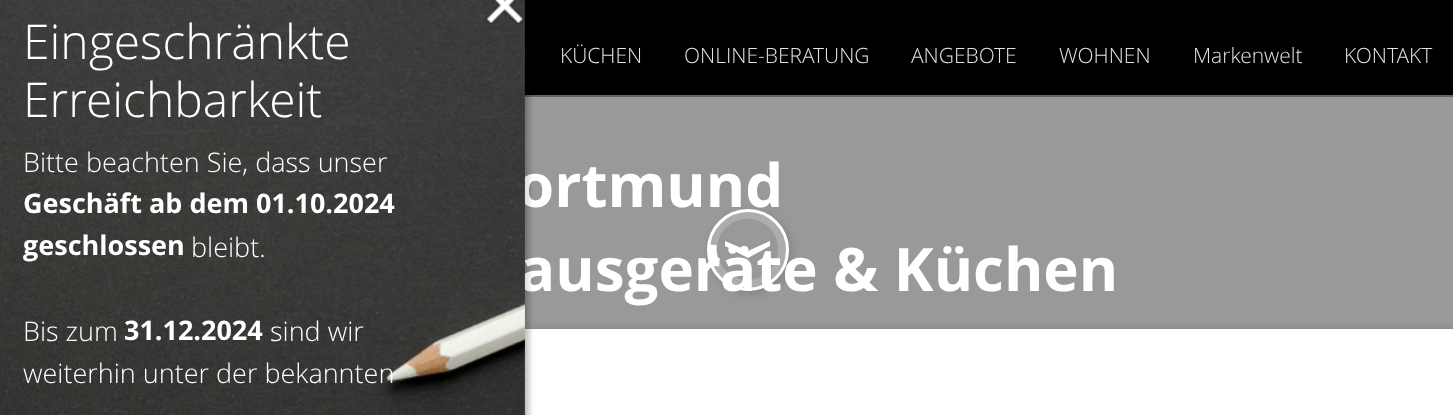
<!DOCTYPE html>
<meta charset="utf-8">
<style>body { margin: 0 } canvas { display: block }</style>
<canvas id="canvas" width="1453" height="415"></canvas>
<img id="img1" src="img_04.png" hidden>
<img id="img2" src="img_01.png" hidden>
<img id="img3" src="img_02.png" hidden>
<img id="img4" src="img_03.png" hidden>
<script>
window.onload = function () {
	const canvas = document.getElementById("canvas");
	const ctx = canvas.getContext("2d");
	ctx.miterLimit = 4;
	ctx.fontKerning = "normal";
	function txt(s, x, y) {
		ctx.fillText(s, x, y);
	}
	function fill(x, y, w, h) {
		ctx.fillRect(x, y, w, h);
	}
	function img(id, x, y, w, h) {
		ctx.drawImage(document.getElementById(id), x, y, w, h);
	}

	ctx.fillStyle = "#000000";
	fill(0, 0, 1453, 415);
	ctx.fillStyle = "#636363";
	fill(524, 95, 929, 2);
	ctx.fillStyle = "#999999";
	fill(524, 97, 929, 232);
	ctx.fillStyle = "rgba(50, 50, 50, 0.5)";
	ctx.filter = "blur(4px)";
	ctx.beginPath();
	ctx.rect(3, 332, 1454, 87);
	ctx.fill();
	ctx.filter = "none";
	ctx.fillStyle = "#FFFFFF";
	fill(524, 329, 929, 86);
	ctx.fillStyle = "rgba(0, 0, 0, 0.2)";
	ctx.filter = "blur(4px)";
	ctx.beginPath();
	ctx.rect(2, -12, 525, 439);
	ctx.fill();
	ctx.filter = "none";
	img("img1", 707, 212, 79, 76);
	ctx.save();
	ctx.beginPath();
	ctx.moveTo(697, 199);
	ctx.lineTo(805, 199);
	ctx.lineTo(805, 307);
	ctx.lineTo(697, 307);
	ctx.closePath();
	ctx.moveTo(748, 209);
	ctx.bezierCurveTo(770.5, 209, 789, 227.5, 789, 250);
	ctx.bezierCurveTo(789, 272.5, 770.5, 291, 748, 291);
	ctx.bezierCurveTo(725.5, 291, 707, 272.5, 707, 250);
	ctx.bezierCurveTo(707, 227.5, 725.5, 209, 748, 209);
	ctx.closePath();
	ctx.clip("evenodd");
	ctx.fillStyle = "rgba(50, 50, 50, 0.2)";
	ctx.filter = "blur(4px)";
	ctx.beginPath();
	ctx.roundRect(710, 212, 82, 82, 41);
	ctx.fill();
	ctx.filter = "none";
	ctx.restore();
	ctx.beginPath();
	ctx.arc(748, 250, 39.5, 0, Math.PI * 2);
	ctx.strokeStyle = "#FFFFFF";
	ctx.lineWidth = 3;
	ctx.stroke();
	ctx.fillStyle = "#FFFFFF";
	ctx.beginPath();
	ctx.moveTo(725, 246);
	ctx.lineTo(725, 241);
	ctx.lineTo(748, 251);
	ctx.lineTo(770, 241);
	ctx.lineTo(770, 246);
	ctx.lineTo(748, 258);
	ctx.closePath();
	ctx.fill();
	ctx.font = "bold 60px Open Sans";
	txt("ortmund", 517, 207);
	txt("ausgeräte & Küchen", 519, 291);
	img("img2", 0, 0, 525, 415);
	ctx.save();
	ctx.beginPath();
	ctx.rect(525, 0, 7, 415);
	ctx.clip();
	ctx.fillStyle = "rgba(0, 0, 0, 0.2)";
	ctx.filter = "blur(4px)";
	ctx.beginPath();
	ctx.rect(2, -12, 525, 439);
	ctx.fill();
	ctx.filter = "none";
	ctx.restore();
	ctx.fillStyle = "rgba(0, 0, 0, 0.2)";
	ctx.filter = "blur(4px)";
	ctx.beginPath();
	ctx.rect(486, -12, 41, 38);
	ctx.fill();
	ctx.filter = "none";
	img("img3", 22, 0, 503, 415);
	img("img4", 486, 0, 38, 24);
	ctx.font = "300 27px Open Sans";
	ctx.fillStyle = "#FFFFFF";
	txt("weiterhin unter der bekannten", 23, 383);
	txt("sind wir", 270, 341);
	ctx.font = "bold 27px Open Sans";
	txt("31.12.2024", 124, 340);
	ctx.font = "300 27px Open Sans";
	txt("Bis zum", 23, 341);
	txt("bleibt.", 191, 257);
	ctx.font = "bold 27px Open Sans";
	txt("geschlossen", 23, 255);
	txt("Geschäft ab dem 01.10.2024", 23, 213);
	ctx.font = "300 27px Open Sans";
	txt("Bitte beachten Sie, dass unser", 23, 172);
	ctx.font = "300 48px Open Sans";
	txt("Erreichbarkeit", 23, 117);
	txt("Eingeschränkte", 23, 59);
	ctx.font = "300 21px Open Sans";
	ctx.fillStyle = "#E3E3E3";
	txt("KÜCHEN", 560, 63);
	txt("ONLINE-BERATUNG", 684, 63);
	txt("ANGEBOTE", 911, 63);
	txt("WOHNEN", 1059, 63);
	txt("Markenwelt", 1193, 63);
	txt("KONTAKT", 1344, 63);
};
</script>
